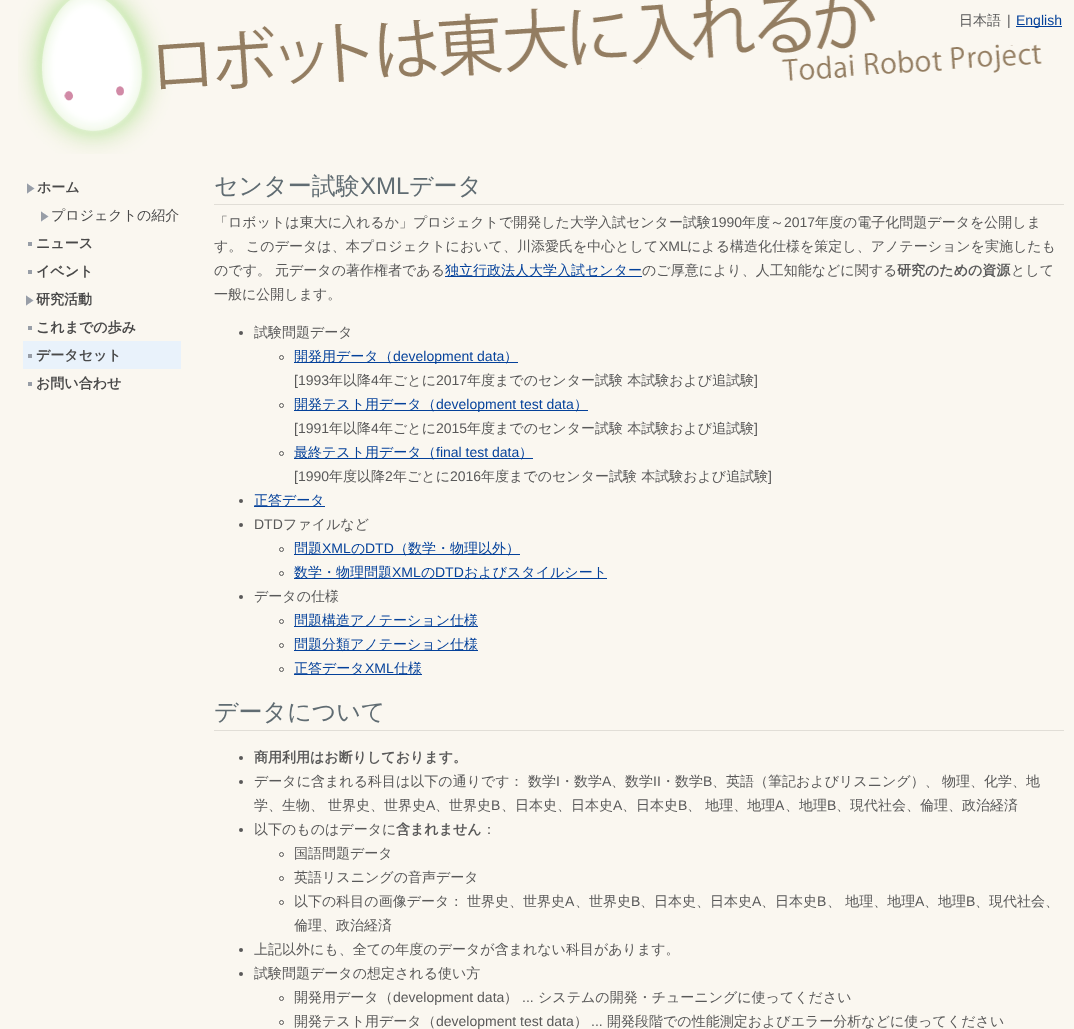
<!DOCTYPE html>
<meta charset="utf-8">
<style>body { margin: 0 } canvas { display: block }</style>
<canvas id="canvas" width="1074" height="1029"></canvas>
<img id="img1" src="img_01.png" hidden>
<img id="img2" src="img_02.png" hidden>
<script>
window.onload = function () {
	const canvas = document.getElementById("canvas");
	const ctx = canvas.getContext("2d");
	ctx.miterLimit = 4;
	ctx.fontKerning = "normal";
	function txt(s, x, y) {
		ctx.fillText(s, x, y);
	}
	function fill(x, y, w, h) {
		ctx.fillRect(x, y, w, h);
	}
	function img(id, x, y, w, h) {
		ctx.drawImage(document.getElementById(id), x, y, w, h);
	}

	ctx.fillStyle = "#FAF7F0";
	fill(0, 0, 1074, 1029);
	img("img1", 18, 0, 1024, 154);
	ctx.fillStyle = "#04419A";
	fill(1016, 26, 46, 1);
	img("img2", 27, 183, 8, 11);
	img("img2", 41, 211, 8, 11);
	ctx.fillStyle = "#989EA7";
	fill(28, 242, 4, 4);
	fill(28, 270, 4, 4);
	img("img2", 26, 295, 8, 11);
	fill(28, 326, 4, 4);
	ctx.fillStyle = "#E9F2FB";
	fill(23, 341, 158, 28);
	ctx.fillStyle = "#989EA7";
	fill(28, 354, 4, 4);
	fill(28, 382, 4, 4);
	ctx.fillStyle = "#E1DED7";
	fill(214, 204, 850, 1);
	ctx.fillStyle = "#04419A";
	fill(445, 276, 197, 1);
	ctx.fillStyle = "#595959";
	ctx.beginPath();
	ctx.arc(241, 333, 2, 0, Math.PI * 2);
	ctx.fill();
	ctx.beginPath();
	ctx.arc(281.5, 357.5, 2, 0, Math.PI * 2);
	ctx.strokeStyle = "#595959";
	ctx.stroke();
	ctx.fillStyle = "#04419A";
	fill(294, 362, 224, 1);
	ctx.beginPath();
	ctx.arc(281.5, 405.5, 2, 0, Math.PI * 2);
	ctx.stroke();
	fill(294, 410, 294, 1);
	ctx.beginPath();
	ctx.arc(281.5, 453.5, 2, 0, Math.PI * 2);
	ctx.stroke();
	fill(294, 458, 239, 1);
	ctx.fillStyle = "#595959";
	ctx.beginPath();
	ctx.arc(241, 501, 2, 0, Math.PI * 2);
	ctx.fill();
	ctx.fillStyle = "#04419A";
	fill(254, 506, 71, 1);
	ctx.fillStyle = "#595959";
	ctx.beginPath();
	ctx.arc(241, 525, 2, 0, Math.PI * 2);
	ctx.fill();
	ctx.beginPath();
	ctx.arc(281.5, 549.5, 2, 0, Math.PI * 2);
	ctx.stroke();
	ctx.fillStyle = "#04419A";
	fill(294, 554, 226, 1);
	ctx.beginPath();
	ctx.arc(281.5, 573.5, 2, 0, Math.PI * 2);
	ctx.stroke();
	fill(294, 578, 313, 1);
	ctx.fillStyle = "#595959";
	ctx.beginPath();
	ctx.arc(241, 597, 2, 0, Math.PI * 2);
	ctx.fill();
	ctx.beginPath();
	ctx.arc(281.5, 621.5, 2, 0, Math.PI * 2);
	ctx.stroke();
	ctx.fillStyle = "#04419A";
	fill(294, 626, 184, 1);
	ctx.beginPath();
	ctx.arc(281.5, 645.5, 2, 0, Math.PI * 2);
	ctx.stroke();
	fill(294, 650, 184, 1);
	ctx.beginPath();
	ctx.arc(281.5, 669.5, 2, 0, Math.PI * 2);
	ctx.stroke();
	fill(294, 674, 128, 1);
	ctx.fillStyle = "#E1DED7";
	fill(214, 730, 850, 1);
	ctx.fillStyle = "#595959";
	ctx.beginPath();
	ctx.arc(241, 758, 2, 0, Math.PI * 2);
	ctx.fill();
	ctx.beginPath();
	ctx.arc(241, 782, 2, 0, Math.PI * 2);
	ctx.fill();
	ctx.beginPath();
	ctx.arc(241, 830, 2, 0, Math.PI * 2);
	ctx.fill();
	ctx.beginPath();
	ctx.arc(281.5, 854.5, 2, 0, Math.PI * 2);
	ctx.stroke();
	ctx.beginPath();
	ctx.arc(281.5, 878.5, 2, 0, Math.PI * 2);
	ctx.stroke();
	ctx.beginPath();
	ctx.arc(281.5, 902.5, 2, 0, Math.PI * 2);
	ctx.stroke();
	ctx.beginPath();
	ctx.arc(241, 950, 2, 0, Math.PI * 2);
	ctx.fill();
	ctx.beginPath();
	ctx.arc(241, 974, 2, 0, Math.PI * 2);
	ctx.fill();
	ctx.beginPath();
	ctx.arc(281.5, 998.5, 2, 0, Math.PI * 2);
	ctx.stroke();
	ctx.beginPath();
	ctx.arc(281.5, 1022.5, 2, 0, Math.PI * 2);
	ctx.stroke();
	ctx.font = "500 14px WenQuanYi Zen Hei";
	txt("日本語", 959, 25);
	ctx.font = "14px Liberation Sans";
	txt("|", 1007, 25);
	ctx.fillStyle = "#04419A";
	txt("English", 1016, 25);
	ctx.font = "bold 14px WenQuanYi Zen Hei";
	ctx.fillStyle = "#494949";
	txt("ホーム", 37, 192);
	ctx.font = "500 14px WenQuanYi Zen Hei";
	txt("プロジェクトの紹介", 51, 220);
	ctx.font = "bold 14px WenQuanYi Zen Hei";
	txt("ニュース", 36, 248);
	txt("イベント", 36, 276);
	txt("研究活動", 36, 304);
	txt("これまでの歩み", 36, 332);
	txt("データセット", 36, 360);
	txt("お問い合わせ", 36, 388);
	ctx.font = "500 24px WenQuanYi Zen Hei";
	ctx.fillStyle = "#606C72";
	txt("センター試験", 214, 194);
	ctx.font = "24px Liberation Sans";
	txt("XML", 360, 194);
	ctx.font = "500 24px WenQuanYi Zen Hei";
	txt("データ", 409, 194);
	ctx.font = "500 14px WenQuanYi Zen Hei";
	ctx.fillStyle = "#595959";
	txt("「ロボットは東大に入れるか」プロジェクトで開発した大学入試センター試験", 214, 227);
	ctx.font = "14px Liberation Sans";
	txt("1990", 711, 227);
	ctx.font = "500 14px WenQuanYi Zen Hei";
	txt("年度～", 742, 227);
	ctx.font = "14px Liberation Sans";
	txt("2017", 784, 227);
	ctx.font = "500 14px WenQuanYi Zen Hei";
	txt("年度の電子化問題データを公開しま", 815, 227);
	txt("す。", 214, 251);
	txt("このデータは、本プロジェクトにおいて、川添愛氏を中心として", 246, 251);
	ctx.font = "14px Liberation Sans";
	txt("XML", 659, 251);
	ctx.font = "500 14px WenQuanYi Zen Hei";
	txt("による構造化仕様を策定し、アノテーションを実施したも", 687, 251);
	txt("のです。", 214, 275);
	txt("元データの著作権者である", 275, 275);
	ctx.fillStyle = "#04419A";
	txt("独立行政法人大学入試センター", 445, 275);
	ctx.fillStyle = "#595959";
	txt("のご厚意により、人工知能などに関する", 642, 275);
	ctx.font = "bold 14px WenQuanYi Zen Hei";
	txt("研究のための資源", 897, 275);
	ctx.font = "500 14px WenQuanYi Zen Hei";
	txt("として", 1011, 275);
	txt("一般に公開します。", 214, 299);
	txt("試験問題データ", 254, 337);
	ctx.fillStyle = "#04419A";
	txt("開発用データ（", 294, 361);
	ctx.font = "14px Liberation Sans";
	txt("development data", 393, 361);
	ctx.font = "500 14px WenQuanYi Zen Hei";
	txt("）", 504, 361);
	ctx.font = "14px Liberation Sans";
	ctx.fillStyle = "#595959";
	txt("[1993", 294, 385);
	ctx.font = "500 14px WenQuanYi Zen Hei";
	txt("年以降", 329, 385);
	ctx.font = "14px Liberation Sans";
	txt("4", 371, 385);
	ctx.font = "500 14px WenQuanYi Zen Hei";
	txt("年ごとに", 379, 385);
	ctx.font = "14px Liberation Sans";
	txt("2017", 436, 385);
	ctx.font = "500 14px WenQuanYi Zen Hei";
	txt("年度までのセンター試験 本試験および追試験", 467, 385);
	ctx.font = "14px Liberation Sans";
	txt("]", 754, 385);
	ctx.font = "500 14px WenQuanYi Zen Hei";
	ctx.fillStyle = "#04419A";
	txt("開発テスト用データ（", 294, 409);
	ctx.font = "14px Liberation Sans";
	txt("development test data", 436, 409);
	ctx.font = "500 14px WenQuanYi Zen Hei";
	txt("）", 574, 409);
	ctx.font = "14px Liberation Sans";
	ctx.fillStyle = "#595959";
	txt("[1991", 294, 433);
	ctx.font = "500 14px WenQuanYi Zen Hei";
	txt("年以降", 329, 433);
	ctx.font = "14px Liberation Sans";
	txt("4", 371, 433);
	ctx.font = "500 14px WenQuanYi Zen Hei";
	txt("年ごとに", 379, 433);
	ctx.font = "14px Liberation Sans";
	txt("2015", 436, 433);
	ctx.font = "500 14px WenQuanYi Zen Hei";
	txt("年度までのセンター試験 本試験および追試験", 467, 433);
	ctx.font = "14px Liberation Sans";
	txt("]", 754, 433);
	ctx.font = "500 14px WenQuanYi Zen Hei";
	ctx.fillStyle = "#04419A";
	txt("最終テスト用データ（", 294, 457);
	ctx.font = "14px Liberation Sans";
	txt("final test data", 436, 457);
	ctx.font = "500 14px WenQuanYi Zen Hei";
	txt("）", 519, 457);
	ctx.font = "14px Liberation Sans";
	ctx.fillStyle = "#595959";
	txt("[1990", 294, 481);
	ctx.font = "500 14px WenQuanYi Zen Hei";
	txt("年度以降", 329, 481);
	ctx.font = "14px Liberation Sans";
	txt("2", 385, 481);
	ctx.font = "500 14px WenQuanYi Zen Hei";
	txt("年ごとに", 393, 481);
	ctx.font = "14px Liberation Sans";
	txt("2016", 450, 481);
	ctx.font = "500 14px WenQuanYi Zen Hei";
	txt("年度までのセンター試験 本試験および追試験", 481, 481);
	ctx.font = "14px Liberation Sans";
	txt("]", 768, 481);
	ctx.font = "500 14px WenQuanYi Zen Hei";
	ctx.fillStyle = "#04419A";
	txt("正答データ", 254, 505);
	ctx.font = "14px Liberation Sans";
	ctx.fillStyle = "#595959";
	txt("DTD", 254, 529);
	ctx.font = "500 14px WenQuanYi Zen Hei";
	txt("ファイルなど", 283, 529);
	ctx.fillStyle = "#04419A";
	txt("問題", 294, 553);
	ctx.font = "14px Liberation Sans";
	txt("XML", 322, 553);
	ctx.font = "500 14px WenQuanYi Zen Hei";
	txt("の", 351, 553);
	ctx.font = "14px Liberation Sans";
	txt("DTD", 365, 553);
	ctx.font = "500 14px WenQuanYi Zen Hei";
	txt("（数学・物理以外）", 394, 553);
	txt("数学・物理問題", 294, 577);
	ctx.font = "14px Liberation Sans";
	txt("XML", 392, 577);
	ctx.font = "500 14px WenQuanYi Zen Hei";
	txt("の", 421, 577);
	ctx.font = "14px Liberation Sans";
	txt("DTD", 435, 577);
	ctx.font = "500 14px WenQuanYi Zen Hei";
	txt("およびスタイルシート", 464, 577);
	ctx.fillStyle = "#595959";
	txt("データの仕様", 254, 601);
	ctx.fillStyle = "#04419A";
	txt("問題構造アノテーション仕様", 294, 625);
	txt("問題分類アノテーション仕様", 294, 649);
	txt("正答データ", 294, 673);
	ctx.font = "14px Liberation Sans";
	txt("XML", 365, 673);
	ctx.font = "500 14px WenQuanYi Zen Hei";
	txt("仕様", 394, 673);
	ctx.font = "500 24px WenQuanYi Zen Hei";
	ctx.fillStyle = "#606C72";
	txt("データについて", 214, 720);
	ctx.font = "bold 14px WenQuanYi Zen Hei";
	ctx.fillStyle = "#595959";
	txt("商用利用はお断りしております。", 254, 762);
	ctx.font = "500 14px WenQuanYi Zen Hei";
	txt("データに含まれる科目は以下の通りです：", 254, 786);
	txt("数学", 528, 786);
	ctx.font = "14px Liberation Sans";
	txt("I", 556, 786);
	ctx.font = "500 14px WenQuanYi Zen Hei";
	txt("・数学", 560, 786);
	ctx.font = "14px Liberation Sans";
	txt("A", 602, 786);
	ctx.font = "500 14px WenQuanYi Zen Hei";
	txt("、数学", 611, 786);
	ctx.font = "14px Liberation Sans";
	txt("II", 653, 786);
	ctx.font = "500 14px WenQuanYi Zen Hei";
	txt("・数学", 661, 786);
	ctx.font = "14px Liberation Sans";
	txt("B", 703, 786);
	ctx.font = "500 14px WenQuanYi Zen Hei";
	txt("、英語（筆記およびリスニング）、", 712, 786);
	txt("物理、化学、地", 942, 786);
	txt("学、生物、", 254, 810);
	txt("世界史、世界史", 328, 810);
	ctx.font = "14px Liberation Sans";
	txt("A", 426, 810);
	ctx.font = "500 14px WenQuanYi Zen Hei";
	txt("、世界史", 435, 810);
	ctx.font = "14px Liberation Sans";
	txt("B", 491, 810);
	ctx.font = "500 14px WenQuanYi Zen Hei";
	txt("、日本史、日本史", 501, 810);
	ctx.font = "14px Liberation Sans";
	txt("A", 613, 810);
	ctx.font = "500 14px WenQuanYi Zen Hei";
	txt("、日本史", 622, 810);
	ctx.font = "14px Liberation Sans";
	txt("B", 678, 810);
	ctx.font = "500 14px WenQuanYi Zen Hei";
	txt("、 地理、地理", 687, 810);
	ctx.font = "14px Liberation Sans";
	txt("A", 775, 810);
	ctx.font = "500 14px WenQuanYi Zen Hei";
	txt("、地理", 785, 810);
	ctx.font = "14px Liberation Sans";
	txt("B", 827, 810);
	ctx.font = "500 14px WenQuanYi Zen Hei";
	txt("、現代社会、倫理、政治経済", 836, 810);
	txt("以下のものはデータに", 254, 834);
	ctx.font = "bold 14px WenQuanYi Zen Hei";
	txt("含まれません", 396, 834);
	ctx.font = "500 14px WenQuanYi Zen Hei";
	txt("：", 482, 834);
	txt("国語問題データ", 294, 858);
	txt("英語リスニングの音声データ", 294, 882);
	txt("以下の科目の画像データ：", 294, 906);
	txt("世界史、世界史", 467, 906);
	ctx.font = "14px Liberation Sans";
	txt("A", 565, 906);
	ctx.font = "500 14px WenQuanYi Zen Hei";
	txt("、世界史", 575, 906);
	ctx.font = "14px Liberation Sans";
	txt("B", 631, 906);
	ctx.font = "500 14px WenQuanYi Zen Hei";
	txt("、日本史、日本史", 640, 906);
	ctx.font = "14px Liberation Sans";
	txt("A", 752, 906);
	ctx.font = "500 14px WenQuanYi Zen Hei";
	txt("、日本史", 761, 906);
	ctx.font = "14px Liberation Sans";
	txt("B", 817, 906);
	ctx.font = "500 14px WenQuanYi Zen Hei";
	txt("、 地理、地理", 827, 906);
	ctx.font = "14px Liberation Sans";
	txt("A", 915, 906);
	ctx.font = "500 14px WenQuanYi Zen Hei";
	txt("、地理", 924, 906);
	ctx.font = "14px Liberation Sans";
	txt("B", 966, 906);
	ctx.font = "500 14px WenQuanYi Zen Hei";
	txt("、現代社会、", 975, 906);
	txt("倫理、政治経済", 294, 930);
	txt("上記以外にも、全ての年度のデータが含まれない科目があります。", 254, 954);
	txt("試験問題データの想定される使い方", 254, 978);
	txt("開発用データ（", 294, 1002);
	ctx.font = "14px Liberation Sans";
	txt("development data", 393, 1002);
	ctx.font = "500 14px WenQuanYi Zen Hei";
	txt("）", 504, 1002);
	ctx.font = "14px Liberation Sans";
	txt("...", 522, 1002);
	ctx.font = "500 14px WenQuanYi Zen Hei";
	txt("システムの開発・チューニングに使ってください", 538, 1002);
	txt("開発テスト用データ（", 294, 1026);
	ctx.font = "14px Liberation Sans";
	txt("development test data", 436, 1026);
	ctx.font = "500 14px WenQuanYi Zen Hei";
	txt("）", 574, 1026);
	ctx.font = "14px Liberation Sans";
	txt("...", 591, 1026);
	ctx.font = "500 14px WenQuanYi Zen Hei";
	txt("開発段階での性能測定およびエラー分析などに使ってください", 607, 1026);
};
</script>
